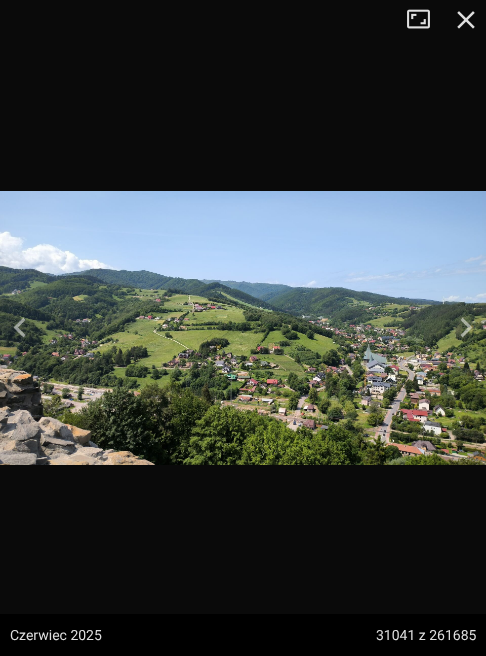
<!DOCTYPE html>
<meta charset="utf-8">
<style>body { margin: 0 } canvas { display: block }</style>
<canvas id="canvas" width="486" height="656"></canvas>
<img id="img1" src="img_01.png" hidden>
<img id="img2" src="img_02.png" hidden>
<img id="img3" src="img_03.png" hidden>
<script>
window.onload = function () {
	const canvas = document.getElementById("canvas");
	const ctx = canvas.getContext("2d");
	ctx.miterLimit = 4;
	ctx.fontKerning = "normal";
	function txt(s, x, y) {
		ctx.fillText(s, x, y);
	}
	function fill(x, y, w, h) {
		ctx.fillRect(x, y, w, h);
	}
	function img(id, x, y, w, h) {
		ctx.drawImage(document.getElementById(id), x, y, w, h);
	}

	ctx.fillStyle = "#0A0A0A";
	fill(0, 0, 486, 656);
	img("img1", 407, 9, 23, 20);
	img("img2", 457, 11, 18, 18);
	img("img3", 0, 191, 486, 274);
	ctx.fillStyle = "rgba(255, 255, 255, 0.5)";
	ctx.beginPath();
	ctx.moveTo(25.5, 320);
	ctx.lineTo(23.5, 317.5);
	ctx.lineTo(13.5, 327.5);
	ctx.lineTo(23.5, 337.5);
	ctx.lineTo(25.5, 335);
	ctx.lineTo(18, 327.5);
	ctx.closePath();
	ctx.fill();
	ctx.beginPath();
	ctx.moveTo(462.5, 317.5);
	ctx.lineTo(460.5, 320);
	ctx.lineTo(468, 327.5);
	ctx.lineTo(460.5, 335);
	ctx.lineTo(462.5, 337.5);
	ctx.lineTo(472.5, 327.5);
	ctx.closePath();
	ctx.fill();
	ctx.fillStyle = "#000000";
	fill(0, 614, 486, 42);
	ctx.font = "14px Roboto";
	ctx.fillStyle = "#DEDEDE";
	txt("Czerwiec 2025", 10, 640);
	txt("31041 z 261685", 376, 640);
};
</script>
